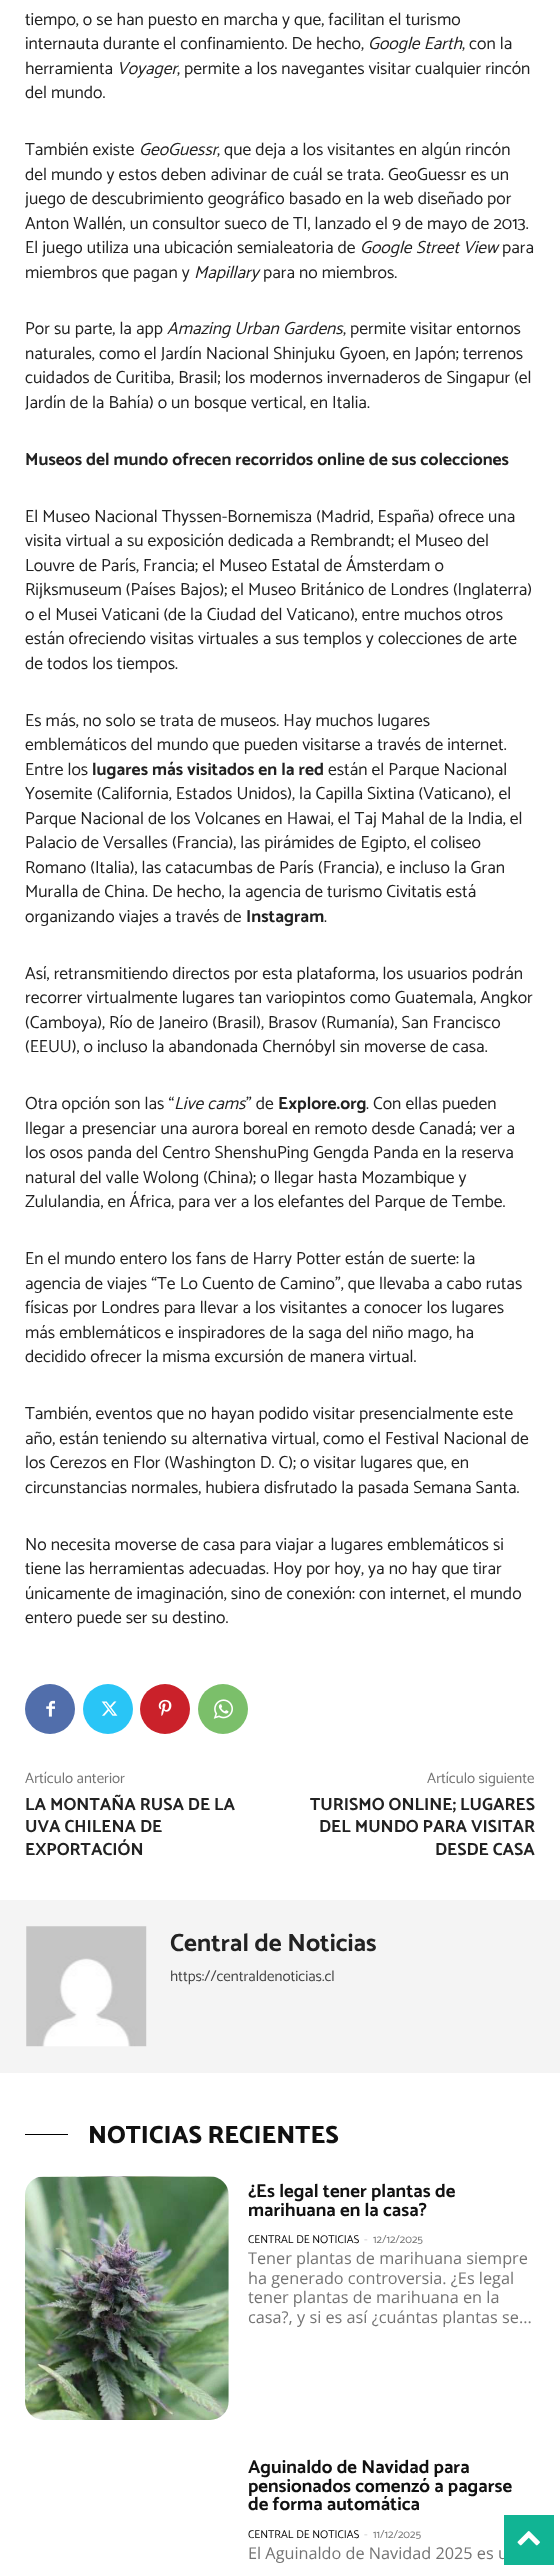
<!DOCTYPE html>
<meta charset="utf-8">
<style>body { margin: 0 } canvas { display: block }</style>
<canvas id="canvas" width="560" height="2570"></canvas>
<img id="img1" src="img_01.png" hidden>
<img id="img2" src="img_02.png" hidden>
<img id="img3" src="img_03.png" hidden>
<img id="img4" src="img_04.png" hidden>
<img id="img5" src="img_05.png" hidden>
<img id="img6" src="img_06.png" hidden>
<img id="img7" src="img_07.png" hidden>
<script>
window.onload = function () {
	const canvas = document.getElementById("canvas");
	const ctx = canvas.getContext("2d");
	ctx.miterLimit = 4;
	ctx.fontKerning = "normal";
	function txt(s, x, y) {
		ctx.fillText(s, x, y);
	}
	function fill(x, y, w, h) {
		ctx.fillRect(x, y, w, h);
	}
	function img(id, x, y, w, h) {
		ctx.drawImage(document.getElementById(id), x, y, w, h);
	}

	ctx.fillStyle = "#FFFFFF";
	fill(0, 0, 560, 2570);
	ctx.fillStyle = "#516EAB";
	ctx.beginPath();
	ctx.arc(50, 1709, 25, 0, Math.PI * 2);
	ctx.fill();
	img("img1", 46, 1700, 9, 17);
	ctx.fillStyle = "#29C5F6";
	ctx.beginPath();
	ctx.arc(108, 1709, 25, 0, Math.PI * 2);
	ctx.fill();
	img("img2", 101, 1701, 17, 15);
	ctx.fillStyle = "#CA212A";
	ctx.beginPath();
	ctx.arc(165, 1709, 25, 0, Math.PI * 2);
	ctx.fill();
	img("img3", 158, 1699, 14, 17);
	ctx.fillStyle = "#7BBF6A";
	ctx.beginPath();
	ctx.arc(223, 1709, 25, 0, Math.PI * 2);
	ctx.fill();
	img("img4", 213, 1699, 20, 20);
	ctx.fillStyle = "#F4F4F4";
	fill(0, 1900, 560, 173);
	img("img5", 26, 1926, 121, 121);
	ctx.fillStyle = "#000000";
	fill(25, 2134, 43, 1);
	img("img6", 25, 2176, 204, 244);
	ctx.font = "17.5px Catamaran";
	ctx.fillStyle = "#222222";
	txt("tiempo, o se han puesto en marcha y que, facilitan el turismo", 25, 25);
	txt("internauta durante el confinamiento. De hecho,", 25, 49);
	ctx.font = "italic 17.5px Catamaran";
	txt("Google Earth", 368, 49);
	ctx.font = "17.5px Catamaran";
	txt(", con la", 462, 49);
	txt("herramienta", 25, 74);
	ctx.font = "italic 17.5px Catamaran";
	txt("Voyager", 117, 74);
	ctx.font = "17.5px Catamaran";
	txt(", permite a los navegantes visitar cualquier rincón", 177, 74);
	txt("del mundo.", 25, 98);
	txt("También existe", 25, 155);
	ctx.font = "italic 17.5px Catamaran";
	txt("GeoGuessr", 139, 155);
	ctx.font = "17.5px Catamaran";
	txt(", que deja a los visitantes en algún rincón", 217, 155);
	txt("del mundo y estos deben adivinar de cuál se trata. GeoGuessr es un", 25, 180);
	txt("juego de descubrimiento geográfico basado en la web diseñado por", 25, 204);
	txt("Anton Wallén, un consultor sueco de TI, lanzado el 9 de mayo de 2013.", 25, 229);
	txt("El juego utiliza una ubicación semialeatoria de", 25, 253);
	ctx.font = "italic 17.5px Catamaran";
	txt("Google Street View", 360, 253);
	ctx.font = "17.5px Catamaran";
	txt("para", 502, 253);
	txt("miembros que pagan y", 25, 278);
	ctx.font = "italic 17.5px Catamaran";
	txt("Mapillary", 194, 278);
	ctx.font = "17.5px Catamaran";
	txt("para no miembros.", 263, 278);
	txt("Por su parte, la app", 25, 334);
	ctx.font = "italic 17.5px Catamaran";
	txt("Amazing Urban Gardens", 167, 334);
	ctx.font = "17.5px Catamaran";
	txt(", permite visitar entornos", 343, 334);
	txt("naturales, como el Jardín Nacional Shinjuku Gyoen, en Japón; terrenos", 25, 359);
	txt("cuidados de Curitiba, Brasil; los modernos invernaderos de Singapur (el", 25, 383);
	txt("Jardín de la Bahía) o un bosque vertical, en Italia.", 25, 408);
	ctx.font = "bold 17.5px Catamaran";
	txt("Museos del mundo ofrecen recorridos online de sus colecciones", 25, 465);
	ctx.font = "17.5px Catamaran";
	txt("El Museo Nacional Thyssen-Bornemisza (Madrid, España) ofrece una", 25, 522);
	txt("visita virtual a su exposición dedicada a Rembrandt; el Museo del", 25, 546);
	txt("Louvre de París, Francia; el Museo Estatal de Ámsterdam o", 25, 571);
	txt("Rijksmuseum (Países Bajos); el Museo Británico de Londres (Inglaterra)", 25, 595);
	txt("o el Musei Vaticani (de la Ciudad del Vaticano), entre muchos otros", 25, 620);
	txt("están ofreciendo visitas virtuales a sus templos y colecciones de arte", 25, 644);
	txt("de todos los tiempos.", 25, 669);
	txt("Es más, no solo se trata de museos. Hay muchos lugares", 25, 726);
	txt("emblemáticos del mundo que pueden visitarse a través de internet.", 25, 750);
	txt("Entre los", 25, 775);
	ctx.font = "bold 17.5px Catamaran";
	txt("lugares más visitados en la red", 92, 775);
	ctx.font = "17.5px Catamaran";
	txt("están el Parque Nacional", 328, 775);
	txt("Yosemite (California, Estados Unidos), la Capilla Sixtina (Vaticano), el", 25, 799);
	txt("Parque Nacional de los Volcanes en Hawai, el Taj Mahal de la India, el", 25, 824);
	txt("Palacio de Versalles (Francia), las pirámides de Egipto, el coliseo", 25, 848);
	txt("Romano (Italia), las catacumbas de París (Francia), e incluso la Gran", 25, 873);
	txt("Muralla de China. De hecho, la agencia de turismo Civitatis está", 25, 897);
	txt("organizando viajes a través de", 25, 922);
	ctx.font = "bold 17.5px Catamaran";
	txt("Instagram", 246, 922);
	ctx.font = "17.5px Catamaran";
	txt(".", 324, 922);
	txt("Así, retransmitiendo directos por esta plataforma, los usuarios podrán", 25, 979);
	txt("recorrer virtualmente lugares tan variopintos como Guatemala, Angkor", 25, 1003);
	txt("(Camboya), Río de Janeiro (Brasil), Brasov (Rumanía), San Francisco", 25, 1028);
	txt("(EEUU), o incluso la abandonada Chernóbyl sin moverse de casa.", 25, 1052);
	txt("Otra opción son las “", 25, 1109);
	ctx.font = "italic 17.5px Catamaran";
	txt("Live cams", 174, 1109);
	ctx.font = "17.5px Catamaran";
	txt("” de", 246, 1109);
	ctx.font = "bold 17.5px Catamaran";
	txt("Explore.org", 278, 1109);
	ctx.font = "17.5px Catamaran";
	txt(". Con ellas pueden", 366, 1109);
	txt("llegar a presenciar una aurora boreal en remoto desde Canadá; ver a", 25, 1134);
	txt("los osos panda del Centro ShenshuPing Gengda Panda en la reserva", 25, 1158);
	txt("natural del valle Wolong (China); o llegar hasta Mozambique y", 25, 1183);
	txt("Zululandia, en África, para ver a los elefantes del Parque de Tembe.", 25, 1207);
	txt("En el mundo entero los fans de Harry Potter están de suerte: la", 25, 1264);
	txt("agencia de viajes “Te Lo Cuento de Camino”, que llevaba a cabo rutas", 25, 1289);
	txt("físicas por Londres para llevar a los visitantes a conocer los lugares", 25, 1313);
	txt("más emblemáticos e inspiradores de la saga del niño mago, ha", 25, 1338);
	txt("decidido ofrecer la misma excursión de manera virtual.", 25, 1362);
	txt("También, eventos que no hayan podido visitar presencialmente este", 25, 1419);
	txt("año, están teniendo su alternativa virtual, como el Festival Nacional de", 25, 1444);
	txt("los Cerezos en Flor (Washington D. C); o visitar lugares que, en", 25, 1468);
	txt("circunstancias normales, hubiera disfrutado la pasada Semana Santa.", 25, 1493);
	txt("No necesita moverse de casa para viajar a lugares emblemáticos si", 25, 1550);
	txt("tiene las herramientas adecuadas. Hoy por hoy, ya no hay que tirar", 25, 1574);
	txt("únicamente de imaginación, sino de conexión: con internet, el mundo", 25, 1599);
	txt("entero puede ser su destino.", 25, 1623);
	ctx.font = "15px Catamaran";
	ctx.fillStyle = "#747474";
	txt("Artículo anterior", 25, 1783);
	ctx.font = "bold 17.5px Catamaran";
	ctx.fillStyle = "#222222";
	txt("LA MONTAÑA RUSA DE LA", 25, 1810);
	txt("UVA CHILENA DE", 25, 1832);
	txt("EXPORTACIÓN", 25, 1855);
	ctx.font = "15px Catamaran";
	ctx.fillStyle = "#747474";
	txt("Artículo siguiente", 427, 1783);
	ctx.font = "bold 17.5px Catamaran";
	ctx.fillStyle = "#222222";
	txt("TURISMO ONLINE; LUGARES", 310, 1810);
	txt("DEL MUNDO PARA VISITAR", 319, 1832);
	txt("DESDE CASA", 435, 1855);
	ctx.font = "bold 25px Catamaran";
	txt("Central de Noticias", 170, 1951);
	ctx.font = "15px Catamaran";
	ctx.fillStyle = "#444444";
	txt("https://centraldenoticias.cl", 170, 1981);
	ctx.font = "800 25px Catamaran";
	ctx.fillStyle = "#111111";
	txt("NOTICIAS RECIENTES", 88, 2143);
	ctx.font = "bold 18.75px Catamaran";
	txt("¿Es legal tener plantas de", 248, 2197);
	txt("marihuana en la casa?", 248, 2216);
	ctx.font = "11.25px Catamaran";
	ctx.fillStyle = "#000000";
	txt("CENTRAL DE NOTICIAS", 248, 2243);
	ctx.fillStyle = "#CCCCCC";
	txt("-", 364, 2243);
	ctx.fillStyle = "#747474";
	txt("12/12/2025", 373, 2243);
	ctx.font = "16.25px Open Sans";
	txt("Tener plantas de marihuana siempre", 248, 2264);
	txt("ha generado controversia. ¿Es legal", 248, 2284);
	txt("tener plantas de marihuana en la", 248, 2303);
	txt("casa?, y si es así ¿cuántas plantas se...", 248, 2323);
	ctx.font = "bold 18.75px Catamaran";
	ctx.fillStyle = "#111111";
	txt("Aguinaldo de Navidad para", 248, 2473);
	txt("pensionados comenzó a pagarse", 248, 2492);
	txt("de forma automática", 248, 2510);
	ctx.font = "11.25px Catamaran";
	ctx.fillStyle = "#000000";
	txt("CENTRAL DE NOTICIAS", 248, 2538);
	ctx.fillStyle = "#CCCCCC";
	txt("-", 364, 2538);
	ctx.fillStyle = "#747474";
	txt("11/12/2025", 373, 2538);
	ctx.font = "16.25px Open Sans";
	txt("El Aguinaldo de Navidad 2025 es u", 248, 2559);
	ctx.fillStyle = "#11B494";
	fill(504, 2515, 50, 50);
	img("img7", 517, 2531, 23, 15);
};
</script>
